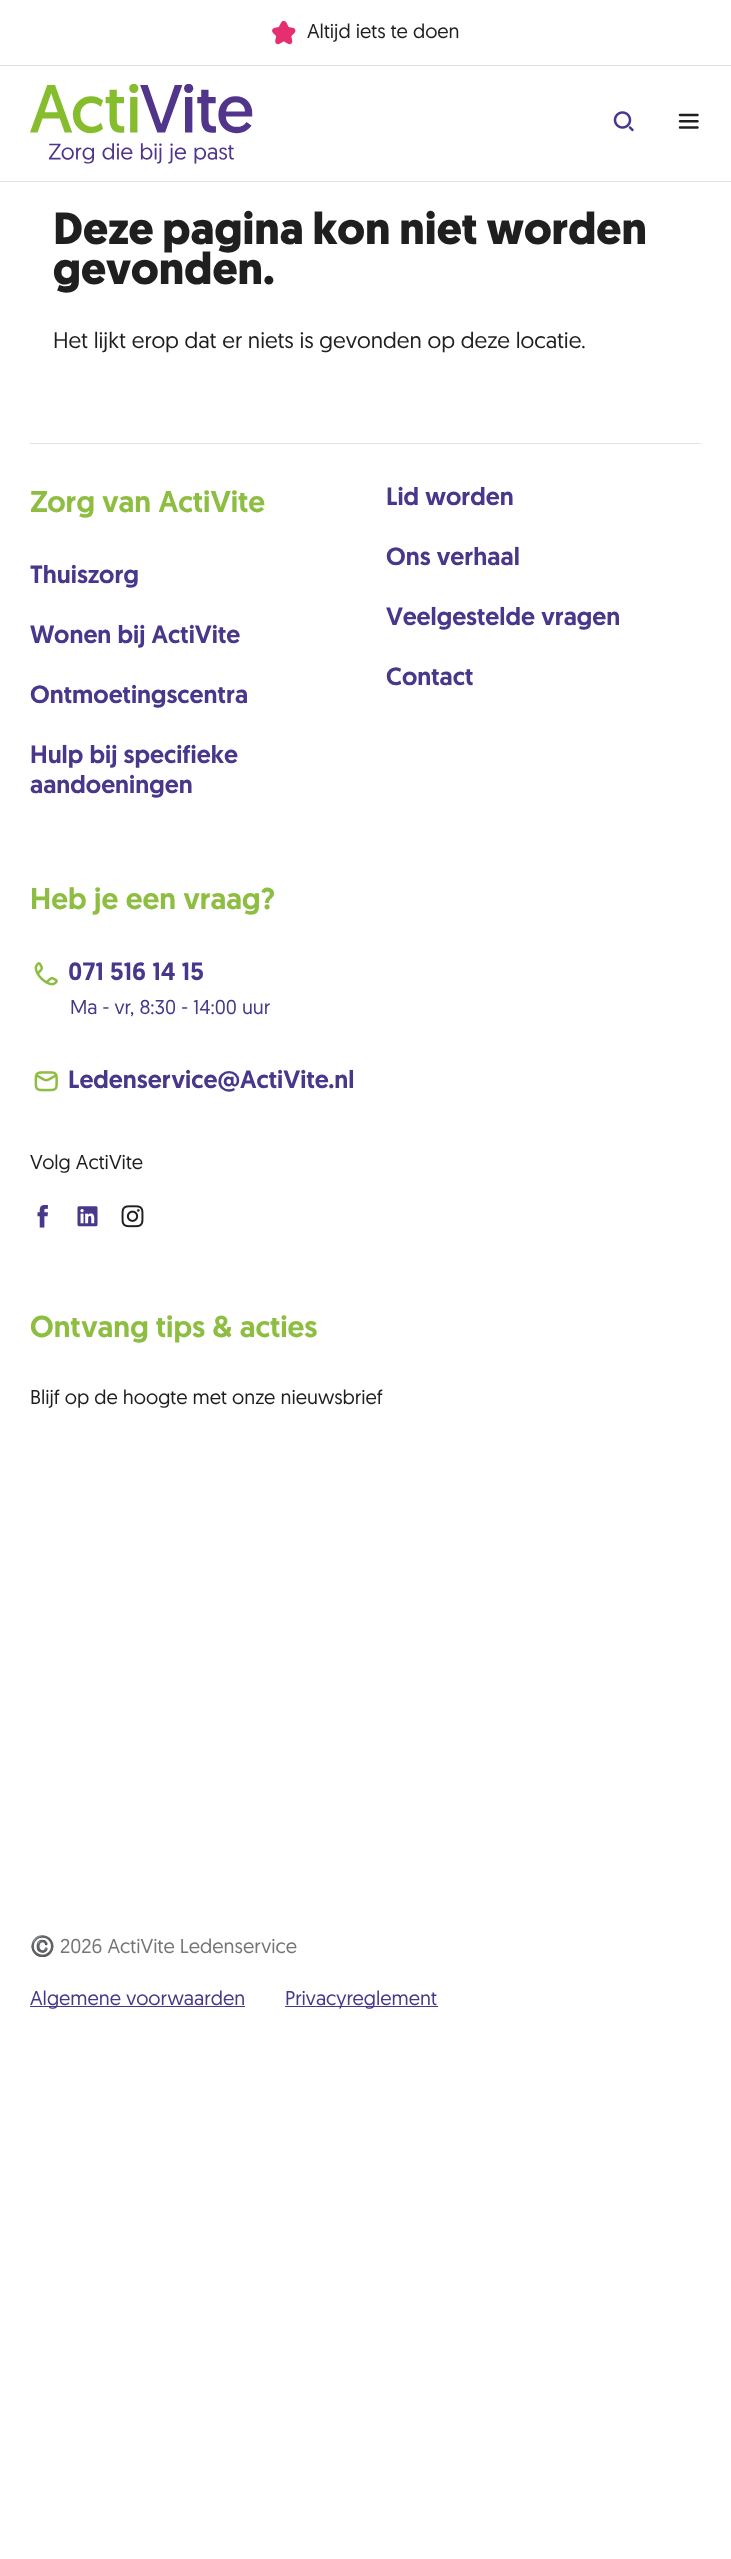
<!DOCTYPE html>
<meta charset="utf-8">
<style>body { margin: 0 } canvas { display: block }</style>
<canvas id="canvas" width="731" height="2559"></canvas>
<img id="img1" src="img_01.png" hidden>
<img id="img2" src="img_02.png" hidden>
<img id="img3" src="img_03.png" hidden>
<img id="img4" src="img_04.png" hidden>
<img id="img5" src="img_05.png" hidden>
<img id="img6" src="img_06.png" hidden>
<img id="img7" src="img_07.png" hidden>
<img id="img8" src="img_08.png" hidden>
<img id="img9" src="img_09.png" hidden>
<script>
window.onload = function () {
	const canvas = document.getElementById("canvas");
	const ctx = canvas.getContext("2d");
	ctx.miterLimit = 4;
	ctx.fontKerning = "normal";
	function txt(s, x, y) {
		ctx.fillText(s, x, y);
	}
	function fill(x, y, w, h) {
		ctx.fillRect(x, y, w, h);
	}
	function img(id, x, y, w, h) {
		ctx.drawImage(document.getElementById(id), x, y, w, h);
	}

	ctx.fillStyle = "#FFFFFF";
	fill(0, 0, 731, 2559);
	ctx.fillStyle = "#E3E3E3";
	fill(0, 65, 731, 1);
	img("img1", 272, 20, 24, 25);
	fill(0, 181, 731, 1);
	img("img2", 30, 84, 223, 80);
	img("img3", 613, 111, 21, 21);
	img("img4", 678, 113, 21, 16);
	fill(30, 443, 671, 1);
	img("img5", 34, 962, 24, 24);
	img("img6", 34, 1071, 24, 21);
	img("img7", 37, 1205, 11, 23);
	img("img8", 77, 1206, 21, 21);
	img("img9", 121, 1205, 23, 23);
	ctx.fillStyle = "#49378B";
	fill(30, 2006, 215, 1);
	fill(285, 2006, 153, 1);
	ctx.font = "20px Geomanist";
	ctx.fillStyle = "#1F1F1F";
	txt("Altijd iets te doen", 307, 38);
	ctx.font = "bold 45px Geomanist";
	txt("Deze pagina kon niet worden", 53, 244);
	txt("gevonden.", 53, 284);
	ctx.font = "22.5px Geomanist";
	txt("Het lijkt erop dat er niets is gevonden op deze locatie.", 53, 348);
	ctx.font = "500 30px Geomanist";
	ctx.fillStyle = "#8DBD41";
	txt("Zorg van ActiVite", 30, 512);
	ctx.font = "500 25px Geomanist";
	ctx.fillStyle = "#49378B";
	txt("Thuiszorg", 30, 583);
	txt("Wonen bij ActiVite", 30, 643);
	txt("Ontmoetingscentra", 30, 703);
	txt("Hulp bij specifieke", 30, 763);
	txt("aandoeningen", 30, 793);
	txt("Lid worden", 386, 505);
	txt("Ons verhaal", 386, 565);
	txt("Veelgestelde vragen", 386, 625);
	txt("Contact", 386, 685);
	ctx.font = "500 30px Geomanist";
	ctx.fillStyle = "#8DBD41";
	txt("Heb je een vraag?", 30, 909);
	ctx.font = "500 25px Geomanist";
	ctx.fillStyle = "#49378B";
	txt("071 516 14 15", 68, 980);
	ctx.font = "20px Geomanist";
	txt("Ma - vr, 8:30 - 14:00 uur", 70, 1014);
	ctx.font = "500 25px Geomanist";
	txt("Ledenservice@ActiVite.nl", 68, 1088);
	ctx.font = "20px Geomanist";
	ctx.fillStyle = "#1F1F1F";
	txt("Volg ActiVite", 30, 1169);
	ctx.font = "500 30px Geomanist";
	ctx.fillStyle = "#8DBD41";
	txt("Ontvang tips & acties", 30, 1337);
	ctx.font = "20px Geomanist";
	ctx.fillStyle = "#1F1F1F";
	txt("Blijf op de hoogte met onze nieuwsbrief", 30, 1404);
	ctx.font = "20px Noto Color Emoji";
	ctx.fillStyle = "#767676";
	txt("©️", 30, 1953);
	ctx.font = "20px Geomanist";
	txt("2026 ActiVite Ledenservice", 60, 1953);
	ctx.fillStyle = "#49378B";
	txt("Algemene voorwaarden", 30, 2005);
	txt("Privacyreglement", 285, 2005);
};
</script>
